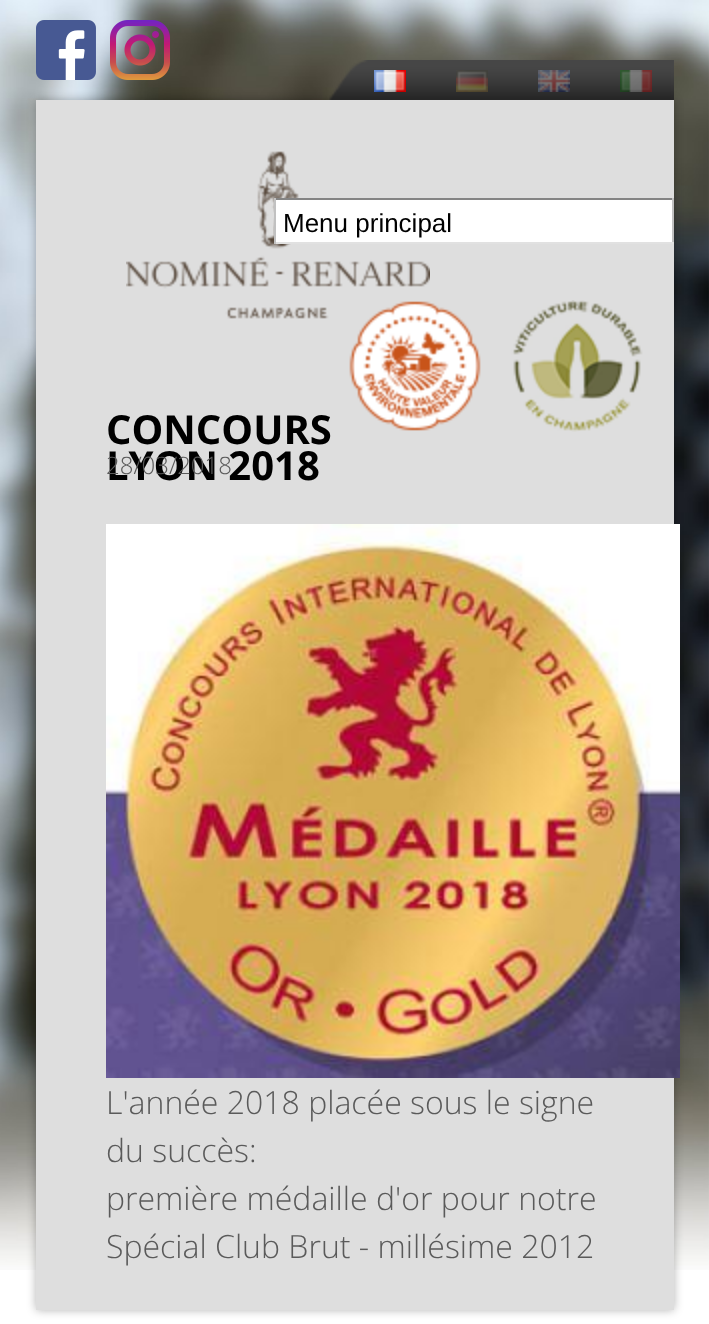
<!DOCTYPE html>
<meta charset="utf-8">
<style>body { margin: 0 } canvas { display: block }</style>
<canvas id="canvas" width="709" height="1324"></canvas>
<img id="img1" src="img_01.png" hidden>
<img id="img2" src="img_02.png" hidden>
<img id="img3" src="img_03.png" hidden>
<img id="img4" src="img_04.png" hidden>
<img id="img5" src="img_05.png" hidden>
<img id="img6" src="img_06.png" hidden>
<img id="img7" src="img_07.png" hidden>
<img id="img8" src="img_08.png" hidden>
<img id="img9" src="img_09.png" hidden>
<img id="img10" src="img_10.png" hidden>
<img id="img11" src="img_11.png" hidden>
<script>
window.onload = function () {
	const canvas = document.getElementById("canvas");
	const ctx = canvas.getContext("2d");
	ctx.miterLimit = 4;
	ctx.fontKerning = "normal";
	function txt(s, x, y) {
		ctx.fillText(s, x, y);
	}
	function fill(x, y, w, h) {
		ctx.fillRect(x, y, w, h);
	}
	function img(id, x, y, w, h) {
		ctx.drawImage(document.getElementById(id), x, y, w, h);
	}

	ctx.fillStyle = "#FFFFFF";
	fill(0, 0, 709, 1324);
	img("img1", 0, 0, 709, 1270);
	ctx.fillStyle = "rgba(0, 0, 0, 0.3)";
	ctx.filter = "blur(5px)";
	ctx.beginPath();
	ctx.rect(36, 100, 638, 1210);
	ctx.fill();
	ctx.filter = "none";
	ctx.fillStyle = "#DEDEDE";
	fill(36, 100, 638, 1210);
	img("img2", 36, 20, 60, 60);
	img("img3", 110, 20, 60, 60);
	img("img4", 329, 60, 345, 40);
	img("img5", 374, 70, 32, 22);
	img("img6", 456, 70, 32, 22);
	img("img7", 538, 70, 32, 22);
	img("img8", 620, 70, 32, 22);
	img("img9", 126, 151, 304, 168);
	ctx.fillStyle = "#FFFFFF";
	fill(276, 200, 396, 42);
	ctx.fillStyle = "#848484";
	fill(274, 198, 400, 2);
	ctx.fillStyle = "#C1C1C1";
	fill(672, 198, 2, 46);
	ctx.fillStyle = "#E1E1E1";
	fill(274, 242, 400, 2);
	ctx.fillStyle = "#C1C1C1";
	fill(274, 198, 2, 46);
	img("img10", 348, 300, 295, 132);
	img("img11", 106, 524, 574, 554);
	ctx.font = "26px Liberation Sans";
	ctx.fillStyle = "#000000";
	txt("Menu principal", 283, 232);
	ctx.font = "bold 40px Open Sans";
	txt("CONCOURS", 106, 444);
	txt("LYON 2018", 106, 480);
	ctx.font = "300 24px Open Sans";
	ctx.fillStyle = "#5A5A5A";
	txt("28/03/2018", 106, 474);
	ctx.font = "300 32px Open Sans";
	txt("L'année 2018 placée sous le signe", 106, 1114);
	txt("du succès:", 106, 1162);
	txt("première médaille d'or pour notre", 106, 1210);
	txt("Spécial Club Brut - millésime 2012", 106, 1258);
};
</script>
